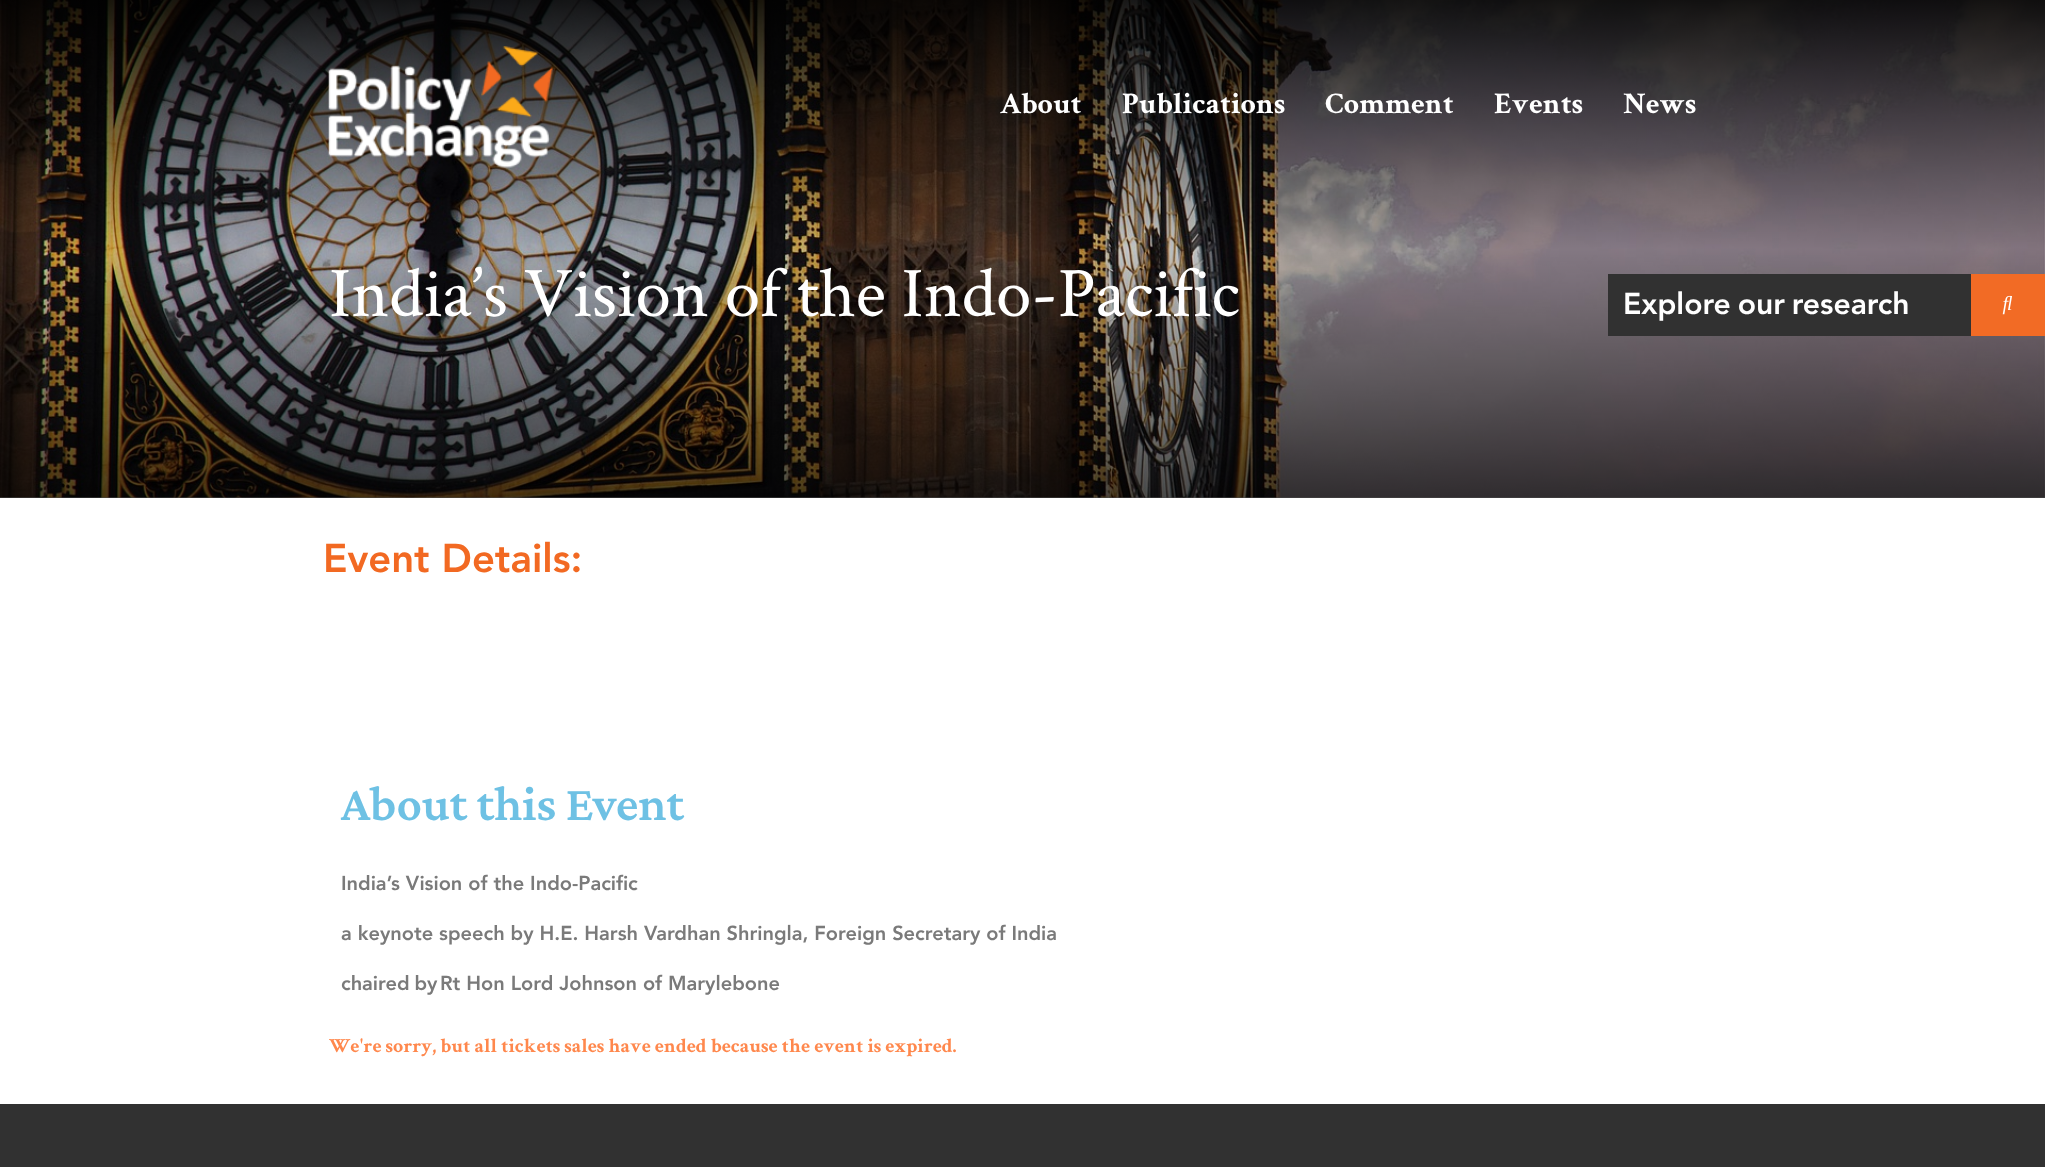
<!DOCTYPE html>
<meta charset="utf-8">
<style>body { margin: 0 } canvas { display: block }</style>
<canvas id="canvas" width="2045" height="1167"></canvas>
<img id="img1" src="img_01.png" hidden>
<img id="img2" src="img_02.png" hidden>
<img id="img3" src="img_03.png" hidden>
<script>
window.onload = function () {
	const canvas = document.getElementById("canvas");
	const ctx = canvas.getContext("2d");
	ctx.miterLimit = 4;
	ctx.fontKerning = "normal";
	function txt(s, x, y) {
		ctx.fillText(s, x, y);
	}
	function fill(x, y, w, h) {
		ctx.fillRect(x, y, w, h);
	}
	function img(id, x, y, w, h) {
		ctx.drawImage(document.getElementById(id), x, y, w, h);
	}
	let gradient;

	ctx.fillStyle = "#FFFFFF";
	fill(0, 0, 2045, 1167);
	img("img1", 0, 0, 2045, 498);
	gradient = ctx.createLinearGradient(1023, 498, 1023, 0);
	gradient.addColorStop(0, "rgba(0, 0, 0, 0.7)");
	gradient.addColorStop(0.5, "rgba(0, 0, 0, 0.2)");
	gradient.addColorStop(1, "rgba(0, 0, 0, 0.9)");
	ctx.fillStyle = gradient;
	fill(0, 0, 2045, 498);
	img("img2", 328, 46, 226, 122);
	ctx.fillStyle = "#313131";
	fill(1608, 274, 363, 62);
	ctx.fillStyle = "#F26B25";
	fill(1971, 274, 74, 62);
	img("img3", 2002, 295, 10, 20);
	ctx.fillStyle = "#313131";
	fill(0, 1104, 2045, 63);
	ctx.font = "bold 30px Crimson Text";
	ctx.fillStyle = "#FFFFFF";
	txt("About", 1000, 113);
	txt("Publications", 1122, 113);
	txt("Comment", 1325, 113);
	txt("Events", 1494, 113);
	txt("News", 1623, 113);
	ctx.font = "71.25px Crimson Text";
	txt("India’s Vision of the Indo-Pacific", 329, 316);
	ctx.wordSpacing = "-2px";
	ctx.font = "900 30px Avenir";
	txt("Explore our research", 1623, 314);
	ctx.wordSpacing = "0px";
	ctx.font = "900 40px Avenir";
	ctx.fillStyle = "#F26922";
	txt("Event Details:", 323, 572);
	ctx.font = "600 50px Crimson Pro";
	ctx.fillStyle = "#6EC1E4";
	txt("About this Event", 341, 820);
	ctx.font = "900 20px Avenir";
	ctx.fillStyle = "#7A7A7A";
	txt("India’s Vision of the Indo-Pacific", 341, 890);
	txt("a keynote speech by H.E. Harsh Vardhan Shringla, Foreign Secretary of India", 341, 940);
	ctx.wordSpacing = "-1px";
	txt("chaired by", 341, 990);
	ctx.wordSpacing = "0px";
	txt("Rt Hon Lord Johnson of Marylebone", 440, 990);
	ctx.font = "bold 20px Crimson Text";
	ctx.fillStyle = "#FF884D";
	txt("We're sorry, but all tickets sales have ended because the event is expired.", 329, 1052);
};
</script>
